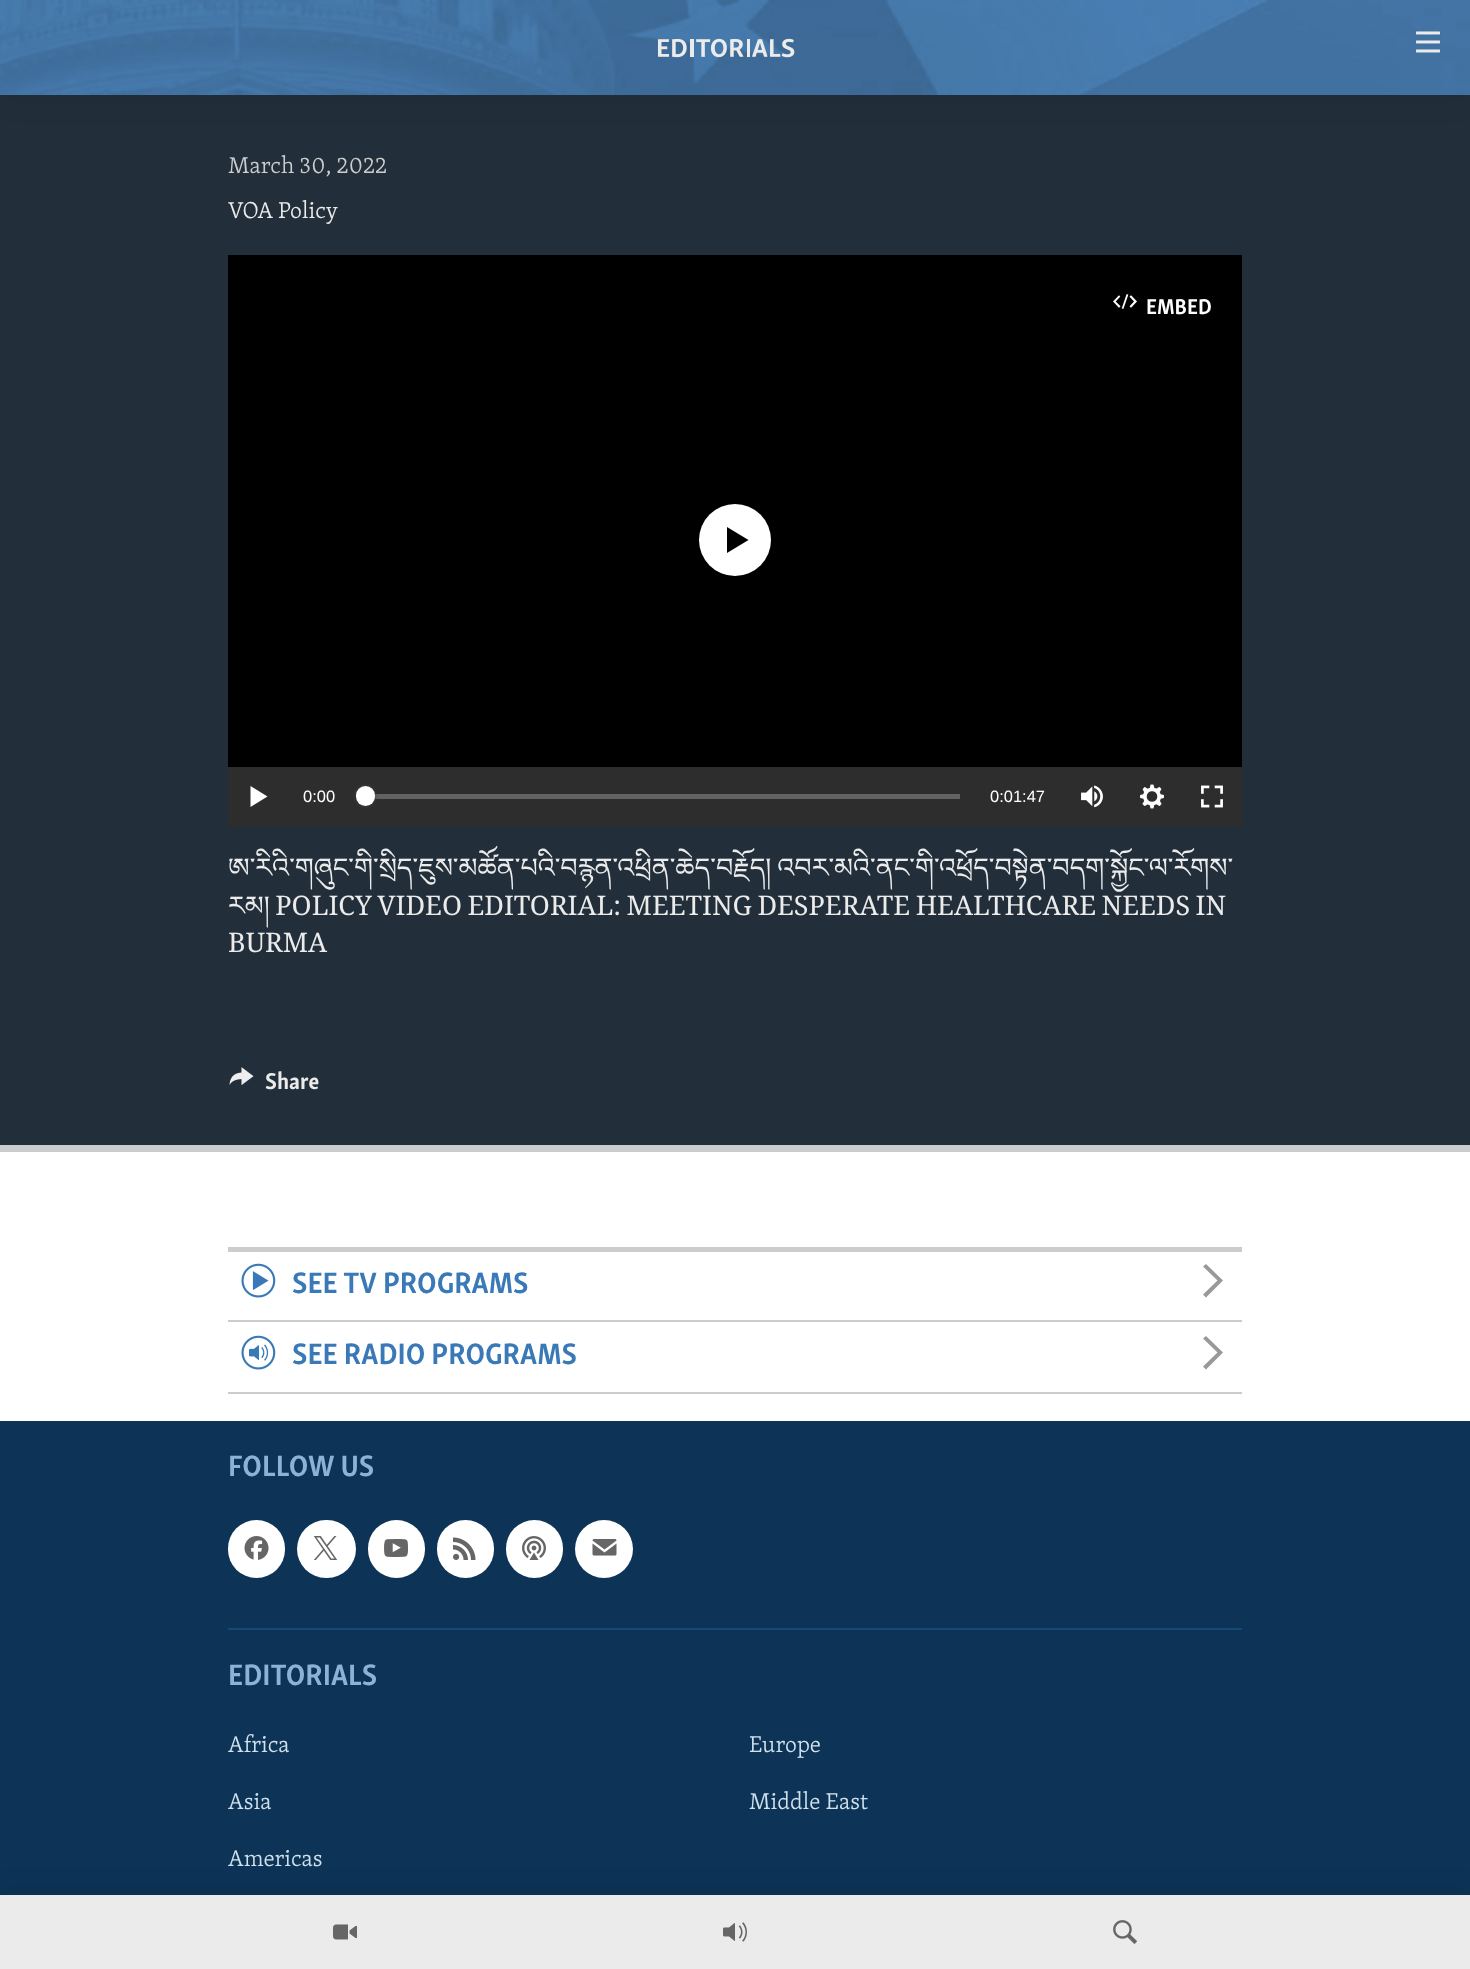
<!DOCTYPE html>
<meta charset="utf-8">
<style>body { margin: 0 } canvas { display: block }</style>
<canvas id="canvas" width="1470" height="1969"></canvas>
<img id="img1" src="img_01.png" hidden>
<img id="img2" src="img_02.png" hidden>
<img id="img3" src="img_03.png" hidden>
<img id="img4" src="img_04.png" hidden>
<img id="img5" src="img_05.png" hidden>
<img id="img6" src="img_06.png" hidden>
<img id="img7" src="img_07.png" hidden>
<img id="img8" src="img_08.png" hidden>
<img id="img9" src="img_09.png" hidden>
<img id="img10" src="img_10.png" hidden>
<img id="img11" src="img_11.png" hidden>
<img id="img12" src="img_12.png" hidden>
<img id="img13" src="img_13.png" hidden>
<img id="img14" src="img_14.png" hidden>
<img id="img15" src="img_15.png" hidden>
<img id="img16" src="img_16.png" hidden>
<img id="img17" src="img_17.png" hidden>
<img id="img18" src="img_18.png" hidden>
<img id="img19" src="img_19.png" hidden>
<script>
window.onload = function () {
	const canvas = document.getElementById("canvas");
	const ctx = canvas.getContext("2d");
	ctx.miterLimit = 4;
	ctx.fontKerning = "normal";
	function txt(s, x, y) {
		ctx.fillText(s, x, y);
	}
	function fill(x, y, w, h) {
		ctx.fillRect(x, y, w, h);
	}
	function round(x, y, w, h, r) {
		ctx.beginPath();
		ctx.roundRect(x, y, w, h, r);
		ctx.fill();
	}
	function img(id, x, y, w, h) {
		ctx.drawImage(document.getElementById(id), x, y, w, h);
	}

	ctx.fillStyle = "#FFFFFF";
	fill(0, 0, 1470, 1969);
	ctx.fillStyle = "#222F3A";
	fill(0, 95, 1470, 1050);
	ctx.fillStyle = "rgba(0, 0, 0, 0.1)";
	ctx.filter = "blur(15px)";
	ctx.beginPath();
	ctx.rect(0, 0, 1470, 95);
	ctx.fill();
	ctx.filter = "none";
	img("img1", 0, 0, 1470, 95);
	img("img2", 657, 38, 138, 20);
	img("img3", 1416, 31, 24, 22);
	ctx.fillStyle = "#0D3456";
	fill(0, 1421, 1470, 474);
	ctx.fillStyle = "rgba(0, 0, 0, 0.1)";
	ctx.filter = "blur(15px)";
	ctx.beginPath();
	ctx.rect(0, 1895, 1470, 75);
	ctx.fill();
	ctx.filter = "none";
	ctx.fillStyle = "#EBEBEB";
	fill(0, 1895, 1470, 74);
	img("img4", 333, 1924, 24, 16);
	img("img5", 723, 1922, 24, 20);
	img("img6", 1113, 1920, 24, 24);
	ctx.fillStyle = "#CCCCCC";
	fill(0, 1145, 1470, 7);
	ctx.fillStyle = "#000000";
	fill(228, 255, 1014, 512);
	img("img7", 1113, 294, 24, 15);
	ctx.fillStyle = "#FFFFFF";
	ctx.beginPath();
	ctx.arc(735, 540, 36, 0, Math.PI * 2);
	ctx.fill();
	ctx.fillStyle = "#000000";
	ctx.beginPath();
	ctx.moveTo(727, 553);
	ctx.lineTo(748.5, 540);
	ctx.lineTo(727, 527);
	ctx.closePath();
	ctx.fill();
	ctx.fillStyle = "#2D2D2D";
	fill(228, 767, 1014, 60);
	ctx.fillStyle = "#FFFFFF";
	ctx.beginPath();
	ctx.moveTo(250.5, 807);
	ctx.lineTo(267.5, 796.5);
	ctx.lineTo(250.5, 786);
	ctx.closePath();
	ctx.fill();
	ctx.fillStyle = "#626262";
	fill(374, 794, 586, 5);
	ctx.fillStyle = "#414144";
	ctx.filter = "blur(2px)";
	ctx.beginPath();
	ctx.roundRect(356, 786, 19, 20, 9.5);
	ctx.fill();
	ctx.filter = "none";
	ctx.fillStyle = "#FFFFFF";
	round(356, 786, 19, 20, 9.5);
	img("img8", 1081, 785, 22, 23);
	img("img9", 1140, 784, 24, 25);
	img("img10", 1201, 785, 22, 23);
	img("img11", 229, 1067, 25, 18);
	ctx.fillStyle = "#CCCCCC";
	fill(228, 1247, 1014, 5);
	fill(228, 1320, 1014, 2);
	img("img12", 241, 1263, 35, 35);
	ctx.fillStyle = "#999999";
	ctx.beginPath();
	ctx.moveTo(1206, 1297.5);
	ctx.lineTo(1223, 1280.5);
	ctx.lineTo(1206, 1264);
	ctx.lineTo(1203, 1266.5);
	ctx.lineTo(1217.5, 1280.5);
	ctx.lineTo(1203, 1294.5);
	ctx.closePath();
	ctx.fill();
	ctx.fillStyle = "#CCCCCC";
	fill(228, 1392, 1014, 2);
	img("img13", 241, 1335, 35, 35);
	ctx.fillStyle = "#999999";
	ctx.beginPath();
	ctx.moveTo(1206, 1369.5);
	ctx.lineTo(1223, 1352.5);
	ctx.lineTo(1206, 1336);
	ctx.lineTo(1203, 1338.5);
	ctx.lineTo(1217.5, 1352.5);
	ctx.lineTo(1203, 1366.5);
	ctx.closePath();
	ctx.fill();
	ctx.fillStyle = "#FFFFFF";
	round(228, 1520, 57, 58, 28.5);
	img("img14", 244, 1536, 25, 24);
	round(297, 1520, 59, 58, 29);
	img("img15", 313, 1536, 25, 24);
	round(368, 1520, 57, 58, 28.5);
	img("img16", 384, 1539, 24, 18);
	round(437, 1520, 57, 58, 28.5);
	img("img17", 453, 1537, 23, 23);
	round(506, 1520, 57, 58, 28.5);
	img("img18", 522, 1536, 24, 24);
	ctx.beginPath();
	ctx.arc(604, 1549, 29, 0, Math.PI * 2);
	ctx.fill();
	img("img19", 592, 1539, 25, 17);
	ctx.fillStyle = "#134976";
	fill(228, 1628, 1014, 2);
	ctx.font = "300 23.5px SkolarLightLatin";
	ctx.fillStyle = "#CCCCCC";
	txt("March 30, 2022", 228, 173);
	ctx.fillStyle = "#EBEBEB";
	txt("VOA Policy", 228, 218);
	ctx.font = "bold 22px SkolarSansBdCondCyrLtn";
	ctx.fillStyle = "#FFFFFF";
	txt("EMBED", 1146, 314);
	ctx.font = "16.5px Liberation Sans";
	txt("0:00", 303, 802);
	txt("0:01:47", 990, 802);
	ctx.wordSpacing = "-1px";
	ctx.font = "27px Noto Serif Tibetan";
	ctx.fillStyle = "#EBEBEB";
	txt("ཨ་རིའི་གཞུང་གི་སྲིད་ཇུས་མཚོན་པའི་བརྙན་འཕྲིན་ཆེད་བརྗོད། འབར་མའི་ནང་གི་འཕྲོད་བསྟེན་བདག་སྐྱོང་ལ་རོགས་", 228, 877);
	ctx.wordSpacing = "-1.5px";
	txt("རམ། POLICY VIDEO EDITORIAL: MEETING DESPERATE HEALTHCARE NEEDS IN", 228, 915);
	ctx.wordSpacing = "0px";
	txt("BURMA", 228, 952);
	ctx.font = "bold 23.5px SkolarSansBdCondCyrLtn";
	txt("Share", 265, 1089);
	ctx.font = "bold 30.4px SkolarSansBdCondCyrLtn";
	ctx.fillStyle = "#3A79B7";
	txt("SEE TV PROGRAMS", 292, 1293);
	txt("SEE RADIO PROGRAMS", 292, 1364);
	ctx.fillStyle = "#8DB3D4";
	txt("FOLLOW US", 228, 1476);
	txt("EDITORIALS", 228, 1685);
	ctx.font = "300 23.5px SkolarLightLatin";
	ctx.fillStyle = "#D1E1EE";
	txt("Africa", 228, 1752);
	txt("Europe", 749, 1752);
	txt("Asia", 228, 1809);
	txt("Middle East", 749, 1809);
	txt("Americas", 228, 1866);
};
</script>
